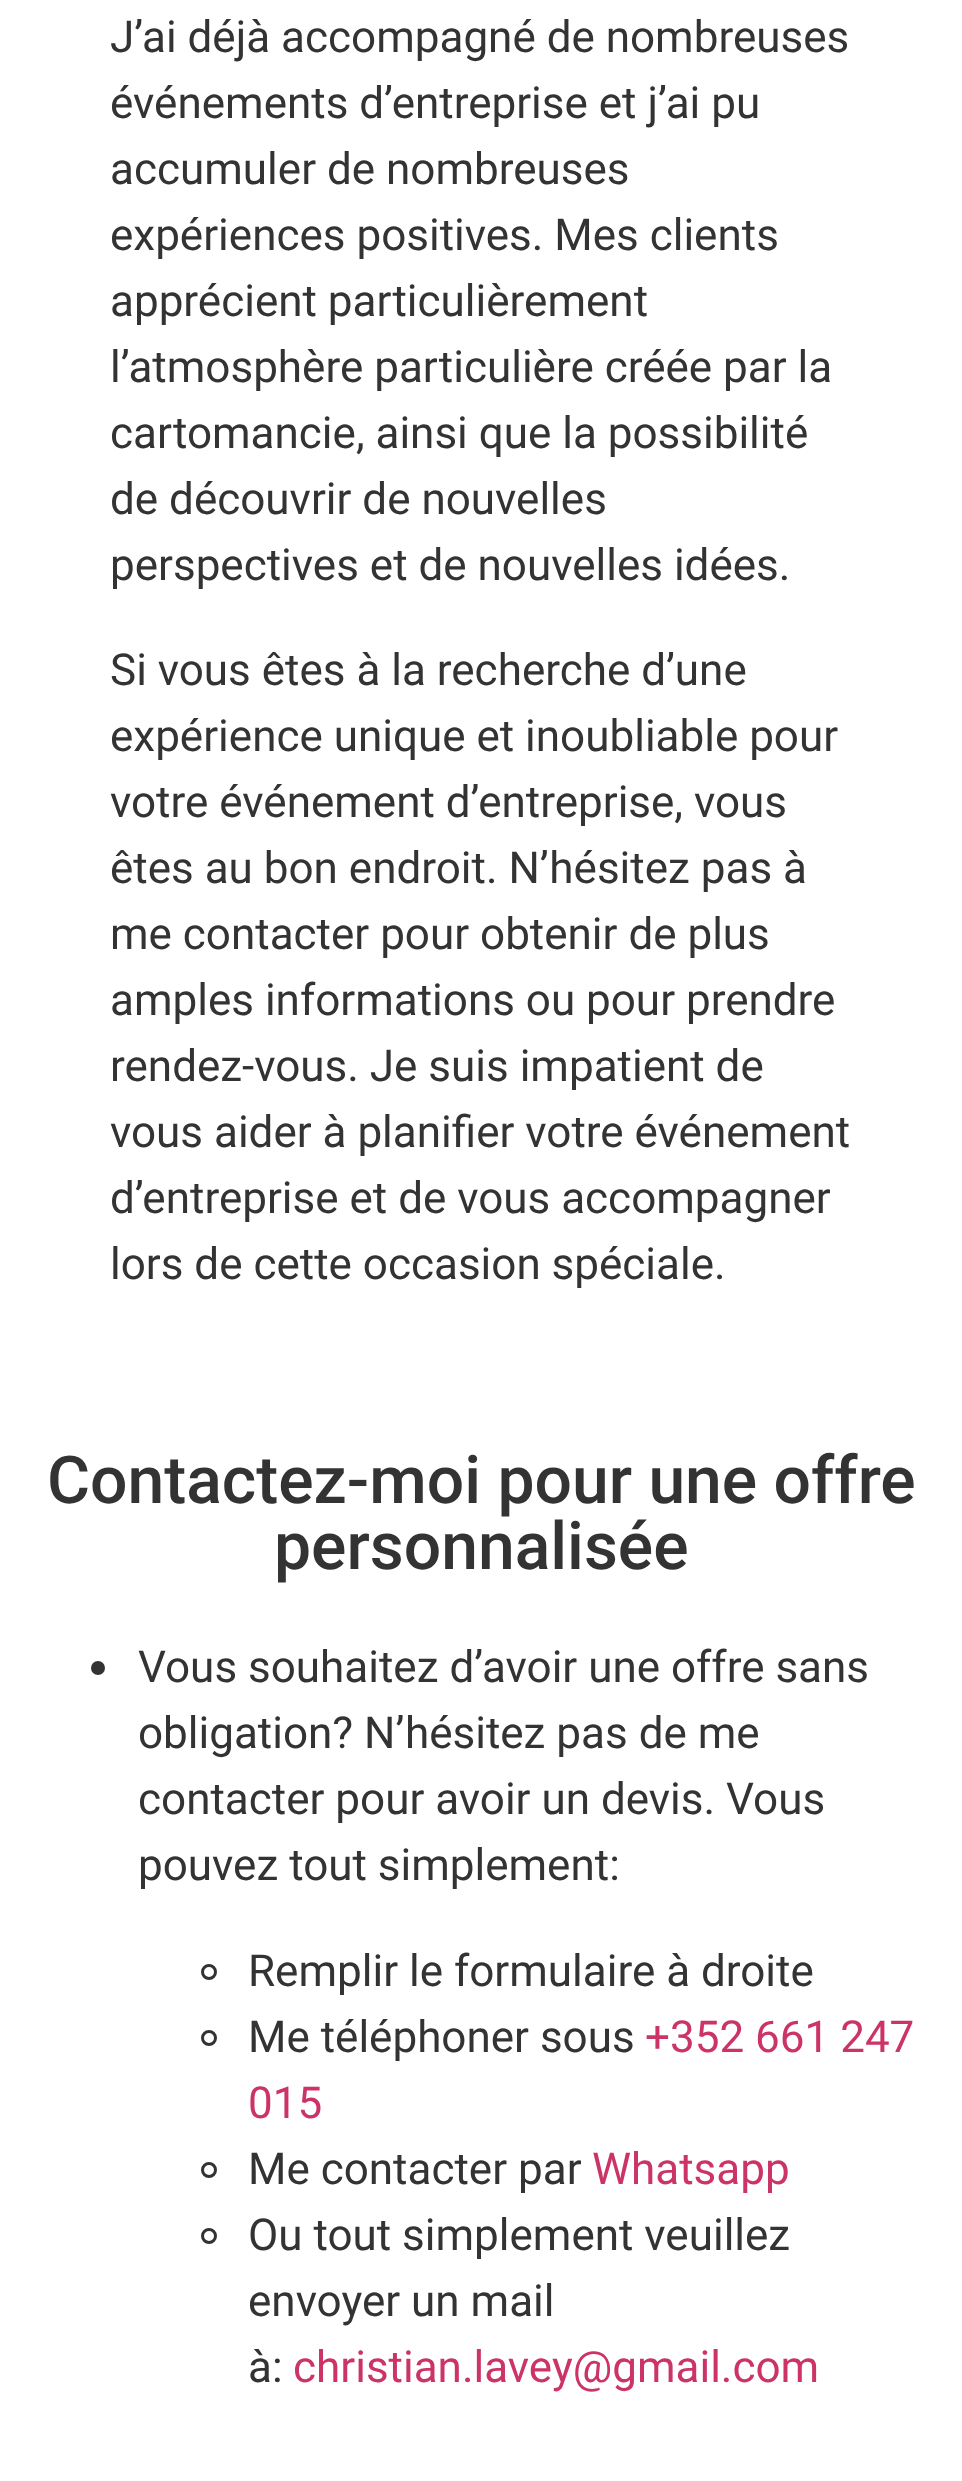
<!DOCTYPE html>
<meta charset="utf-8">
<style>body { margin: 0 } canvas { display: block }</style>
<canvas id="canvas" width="962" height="2481"></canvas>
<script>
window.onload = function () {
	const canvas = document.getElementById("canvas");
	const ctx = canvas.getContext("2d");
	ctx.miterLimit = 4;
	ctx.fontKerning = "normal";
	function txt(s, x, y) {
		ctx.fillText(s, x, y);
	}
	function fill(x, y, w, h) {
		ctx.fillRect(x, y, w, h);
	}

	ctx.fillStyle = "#FFFFFF";
	fill(0, 0, 962, 2481);
	ctx.fillStyle = "#333333";
	ctx.beginPath();
	ctx.arc(98, 1668, 7, 0, Math.PI * 2);
	ctx.fill();
	ctx.beginPath();
	ctx.arc(209, 1972, 6.5, 0, Math.PI * 2);
	ctx.strokeStyle = "#333333";
	ctx.lineWidth = 3;
	ctx.stroke();
	ctx.beginPath();
	ctx.arc(209, 2038, 6.5, 0, Math.PI * 2);
	ctx.stroke();
	ctx.beginPath();
	ctx.arc(209, 2170, 6.5, 0, Math.PI * 2);
	ctx.stroke();
	ctx.beginPath();
	ctx.arc(209, 2236, 6.5, 0, Math.PI * 2);
	ctx.stroke();
	ctx.font = "44px Roboto";
	txt("J’ai déjà accompagné de nombreuses", 110, 52);
	txt("événements d’entreprise et j’ai pu", 110, 118);
	txt("accumuler de nombreuses", 110, 184);
	txt("expériences positives. Mes clients", 110, 250);
	txt("apprécient particulièrement", 110, 316);
	txt("l’atmosphère particulière créée par la", 110, 382);
	txt("cartomancie, ainsi que la possibilité", 110, 448);
	txt("de découvrir de nouvelles", 110, 514);
	txt("perspectives et de nouvelles idées.", 110, 580);
	txt("Si vous êtes à la recherche d’une", 110, 685);
	txt("expérience unique et inoubliable pour", 110, 751);
	txt("votre événement d’entreprise, vous", 110, 817);
	txt("êtes au bon endroit. N’hésitez pas à", 110, 883);
	txt("me contacter pour obtenir de plus", 110, 949);
	txt("amples informations ou pour prendre", 110, 1015);
	txt("rendez-vous. Je suis impatient de", 110, 1081);
	txt("vous aider à planifier votre événement", 110, 1147);
	txt("d’entreprise et de vous accompagner", 110, 1213);
	txt("lors de cette occasion spéciale.", 110, 1279);
	ctx.font = "500 66px Roboto";
	txt("Contactez-moi pour une offre", 47, 1503);
	txt("personnalisée", 274, 1569);
	ctx.font = "44px Roboto";
	txt("Vous souhaitez d’avoir une offre sans", 138, 1682);
	txt("obligation? N’hésitez pas de me", 138, 1748);
	txt("contacter pour avoir un devis. Vous", 138, 1814);
	txt("pouvez tout simplement:", 138, 1880);
	txt("Remplir le formulaire à droite", 248, 1986);
	txt("Me téléphoner sous", 248, 2052);
	ctx.fillStyle = "#CC3366";
	txt("+352 661 247", 645, 2052);
	txt("015", 248, 2118);
	ctx.fillStyle = "#333333";
	txt("Me contacter par", 248, 2184);
	ctx.fillStyle = "#CC3366";
	txt("Whatsapp", 592, 2184);
	ctx.fillStyle = "#333333";
	txt("Ou tout simplement veuillez", 248, 2250);
	txt("envoyer un mail", 248, 2316);
	txt("à:", 248, 2382);
	ctx.fillStyle = "#CC3366";
	txt("christian.lavey@gmail.com", 293, 2382);
};
</script>
